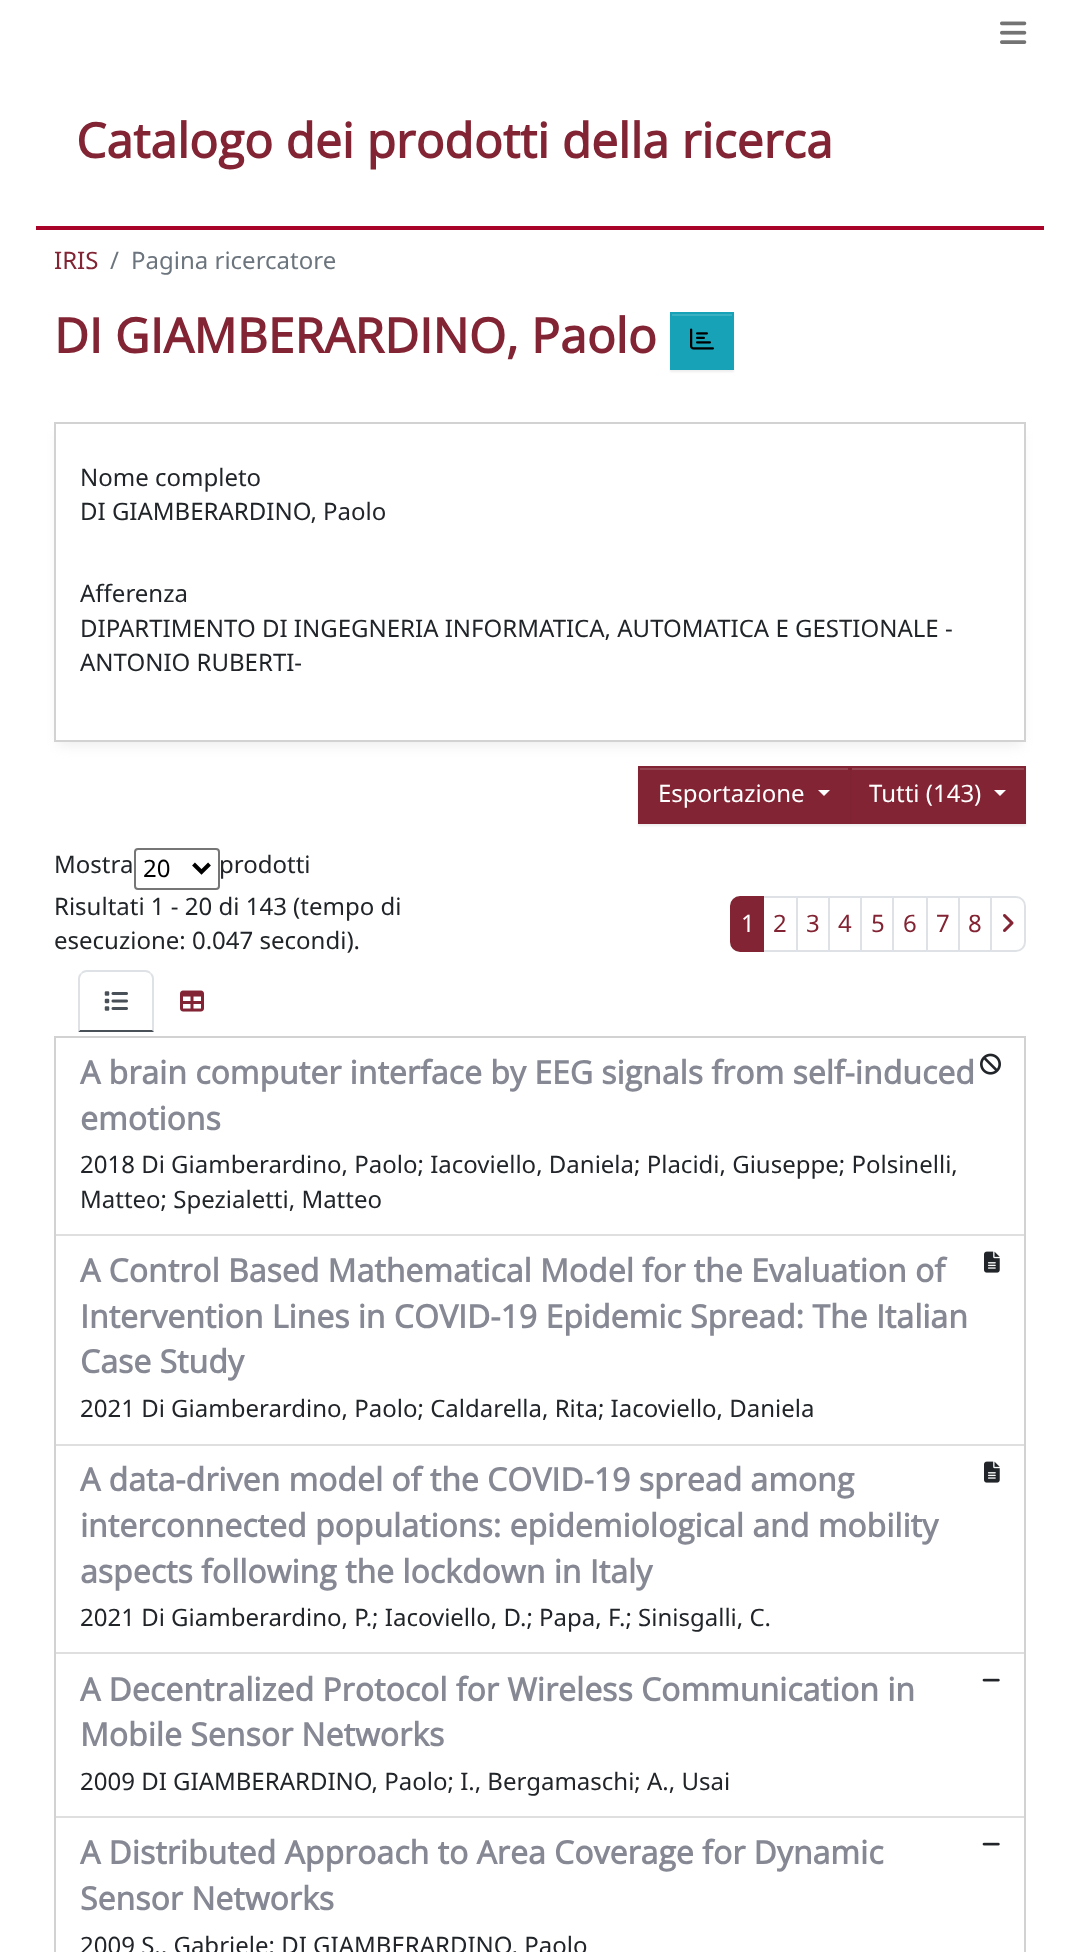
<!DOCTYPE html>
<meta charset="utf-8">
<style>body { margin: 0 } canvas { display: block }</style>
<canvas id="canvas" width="1079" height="1952"></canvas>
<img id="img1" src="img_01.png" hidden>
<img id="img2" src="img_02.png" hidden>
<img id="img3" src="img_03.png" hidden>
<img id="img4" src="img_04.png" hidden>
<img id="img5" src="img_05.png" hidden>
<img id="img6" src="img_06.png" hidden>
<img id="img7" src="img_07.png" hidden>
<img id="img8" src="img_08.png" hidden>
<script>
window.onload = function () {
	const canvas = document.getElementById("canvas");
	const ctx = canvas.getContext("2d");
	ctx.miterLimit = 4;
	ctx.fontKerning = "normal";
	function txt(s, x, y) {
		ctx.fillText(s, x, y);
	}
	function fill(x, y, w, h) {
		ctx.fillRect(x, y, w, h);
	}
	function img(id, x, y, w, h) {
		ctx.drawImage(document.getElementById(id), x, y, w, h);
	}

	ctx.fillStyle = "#FFFFFF";
	fill(0, 0, 1079, 1952);
	img("img1", 1000, 21, 27, 23);
	ctx.fillStyle = "#A90329";
	fill(36, 226, 1008, 4);
	ctx.fillStyle = "rgba(0, 0, 0, 0.07)";
	ctx.filter = "blur(1px)";
	ctx.beginPath();
	ctx.rect(670, 314, 64, 58);
	ctx.fill();
	ctx.filter = "none";
	ctx.fillStyle = "#17A2B8";
	fill(670, 312, 64, 58);
	ctx.fillStyle = "#3AB0C3";
	fill(672, 314, 60, 2);
	img("img2", 690, 328, 24, 22);
	ctx.save();
	ctx.beginPath();
	ctx.moveTo(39, 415);
	ctx.lineTo(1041, 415);
	ctx.lineTo(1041, 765);
	ctx.lineTo(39, 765);
	ctx.closePath();
	ctx.moveTo(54, 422);
	ctx.lineTo(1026, 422);
	ctx.lineTo(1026, 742);
	ctx.lineTo(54, 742);
	ctx.closePath();
	ctx.clip("evenodd");
	ctx.fillStyle = "#EEEEEE";
	ctx.filter = "blur(6px)";
	ctx.beginPath();
	ctx.rect(58, 434, 964, 312);
	ctx.fill();
	ctx.filter = "none";
	ctx.restore();
	ctx.strokeStyle = "#D2D2D2";
	ctx.lineWidth = 2;
	ctx.strokeRect(55, 423, 970, 318);
	ctx.fillStyle = "rgba(0, 0, 0, 0.07)";
	ctx.filter = "blur(1px)";
	ctx.beginPath();
	ctx.rect(850, 768, 176, 58);
	ctx.fill();
	ctx.filter = "none";
	ctx.fillStyle = "#822433";
	fill(850, 766, 176, 58);
	ctx.fillStyle = "#954552";
	fill(852, 768, 172, 2);
	ctx.fillStyle = "rgba(0, 0, 0, 0.07)";
	ctx.filter = "blur(1px)";
	ctx.beginPath();
	ctx.rect(638, 768, 212, 58);
	ctx.fill();
	ctx.filter = "none";
	ctx.fillStyle = "#822433";
	fill(638, 766, 212, 58);
	ctx.fillStyle = "#954552";
	fill(640, 768, 208, 2);
	ctx.fillStyle = "#FFFFFF";
	ctx.beginPath();
	ctx.moveTo(818, 790);
	ctx.lineTo(830, 790);
	ctx.lineTo(824, 796);
	ctx.closePath();
	ctx.fill();
	ctx.beginPath();
	ctx.moveTo(994, 790);
	ctx.lineTo(1006, 790);
	ctx.lineTo(1000, 796);
	ctx.closePath();
	ctx.fill();
	ctx.beginPath();
	ctx.roundRect(135, 849, 84, 40, 3);
	ctx.strokeStyle = "#767676";
	ctx.stroke();
	ctx.beginPath();
	ctx.moveTo(193.5, 864);
	ctx.lineTo(201.5, 872);
	ctx.lineTo(209.5, 864);
	ctx.strokeStyle = "#000000";
	ctx.lineWidth = 4;
	ctx.stroke();
	ctx.strokeStyle = "#DEE2E6";
	ctx.lineWidth = 2;
	ctx.strokeRect(763, 897, 34, 54);
	ctx.fillStyle = "#822433";
	ctx.beginPath();
	ctx.roundRect(731, 897, 32, 54, [9, 0, 0, 9]);
	ctx.fill();
	ctx.strokeStyle = "#822433";
	ctx.stroke();
	ctx.strokeStyle = "#DEE2E6";
	ctx.strokeRect(797, 897, 32, 54);
	ctx.strokeRect(829, 897, 32, 54);
	ctx.strokeRect(861, 897, 32, 54);
	ctx.strokeRect(893, 897, 34, 54);
	ctx.strokeRect(927, 897, 32, 54);
	ctx.strokeRect(959, 897, 32, 54);
	ctx.fillStyle = "#FFFFFF";
	ctx.beginPath();
	ctx.roundRect(991, 897, 34, 54, [0, 9, 9, 0]);
	ctx.fill();
	ctx.stroke();
	img("img3", 1003, 914, 11, 18);
	ctx.fillStyle = "#DEE2E6";
	ctx.beginPath();
	ctx.moveTo(87, 970);
	ctx.bezierCurveTo(84, 970, 82, 971, 81, 973);
	ctx.lineTo(82, 974);
	ctx.bezierCurveTo(83, 973, 85, 972, 87, 972);
	ctx.lineTo(145, 972);
	ctx.bezierCurveTo(147, 972, 149, 973, 150, 974);
	ctx.lineTo(151, 973);
	ctx.bezierCurveTo(150, 971, 148, 970, 145, 970);
	ctx.closePath();
	ctx.fill();
	ctx.beginPath();
	ctx.moveTo(154, 1032);
	ctx.lineTo(154, 979);
	ctx.bezierCurveTo(154, 976, 153, 974, 151, 973);
	ctx.lineTo(150, 974);
	ctx.bezierCurveTo(151, 975, 152, 977, 152, 979);
	ctx.lineTo(152, 1030);
	ctx.closePath();
	ctx.fill();
	ctx.fillStyle = "#495057";
	ctx.beginPath();
	ctx.moveTo(154, 1032);
	ctx.lineTo(152, 1030);
	ctx.lineTo(80, 1030);
	ctx.lineTo(78, 1032);
	ctx.closePath();
	ctx.fill();
	ctx.fillStyle = "#DEE2E6";
	ctx.beginPath();
	ctx.moveTo(78, 1032);
	ctx.lineTo(80, 1030);
	ctx.lineTo(80, 979);
	ctx.bezierCurveTo(80, 977, 81, 975, 82, 974);
	ctx.lineTo(81, 973);
	ctx.bezierCurveTo(79, 974, 78, 976, 78, 979);
	ctx.closePath();
	ctx.fill();
	img("img4", 104, 991, 24, 20);
	img("img5", 180, 990, 24, 22);
	ctx.strokeStyle = "#D2D2D2";
	ctx.strokeRect(55, 1037, 970, 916);
	ctx.fillStyle = "#DFDFDF";
	fill(56, 1234, 968, 2);
	img("img6", 980, 1053, 21, 22);
	fill(56, 1444, 968, 2);
	img("img7", 984, 1251, 16, 22);
	fill(56, 1652, 968, 2);
	img("img7", 984, 1461, 16, 22);
	fill(56, 1816, 968, 2);
	img("img8", 982, 1678, 18, 4);
	img("img8", 982, 1842, 18, 4);
	ctx.font = "bold 48px Open Sans";
	ctx.fillStyle = "#822433";
	txt("Catalogo dei prodotti della ricerca", 76, 158);
	ctx.font = "24px Noto Sans";
	txt("IRIS", 54, 269);
	ctx.fillStyle = "#6C757D";
	txt("/", 110, 269);
	txt("Pagina ricercatore", 131, 269);
	ctx.font = "bold 48px Open Sans";
	ctx.fillStyle = "#822433";
	txt("DI GIAMBERARDINO, Paolo", 54, 353);
	ctx.font = "24px Noto Sans";
	ctx.fillStyle = "#212529";
	txt("Nome completo", 80, 486);
	txt("DI GIAMBERARDINO, Paolo", 80, 520);
	txt("Afferenza", 80, 602);
	txt("DIPARTIMENTO DI INGEGNERIA INFORMATICA, AUTOMATICA E GESTIONALE -", 80, 637);
	txt("ANTONIO RUBERTI-", 80, 671);
	ctx.fillStyle = "#FFFFFF";
	txt("Esportazione", 658, 802);
	txt("Tutti (143)", 869, 802);
	ctx.fillStyle = "#212529";
	txt("Mostra", 54, 873);
	ctx.fillStyle = "#000000";
	txt("20", 143, 877);
	ctx.fillStyle = "#212529";
	txt("prodotti", 219, 873);
	txt("Risultati 1 - 20 di 143 (tempo di", 54, 915);
	txt("esecuzione: 0.047 secondi).", 54, 949);
	ctx.fillStyle = "#FFFFFF";
	txt("1", 741, 932);
	ctx.fillStyle = "#822433";
	txt("2", 773, 932);
	txt("3", 806, 932);
	txt("4", 838, 932);
	txt("5", 871, 932);
	txt("6", 903, 932);
	txt("7", 936, 932);
	txt("8", 968, 932);
	ctx.font = "bold 32px Open Sans";
	ctx.fillStyle = "#868894";
	txt("A brain computer interface by EEG signals from self-induced", 80, 1084);
	txt("emotions", 80, 1130);
	ctx.font = "24px Noto Sans";
	ctx.fillStyle = "#212529";
	txt("2018 Di Giamberardino, Paolo; Iacoviello, Daniela; Placidi, Giuseppe; Polsinelli,", 80, 1173);
	txt("Matteo; Spezialetti, Matteo", 80, 1208);
	ctx.font = "bold 32px Open Sans";
	ctx.fillStyle = "#868894";
	txt("A Control Based Mathematical Model for the Evaluation of", 80, 1282);
	txt("Intervention Lines in COVID-19 Epidemic Spread: The Italian", 80, 1328);
	txt("Case Study", 80, 1373);
	ctx.font = "24px Noto Sans";
	ctx.fillStyle = "#212529";
	txt("2021 Di Giamberardino, Paolo; Caldarella, Rita; Iacoviello, Daniela", 80, 1417);
	ctx.font = "bold 32px Open Sans";
	ctx.fillStyle = "#868894";
	txt("A data-driven model of the COVID-19 spread among", 80, 1491);
	txt("interconnected populations: epidemiological and mobility", 80, 1537);
	txt("aspects following the lockdown in Italy", 80, 1583);
	ctx.font = "24px Noto Sans";
	ctx.fillStyle = "#212529";
	txt("2021 Di Giamberardino, P.; Iacoviello, D.; Papa, F.; Sinisgalli, C.", 80, 1626);
	ctx.font = "bold 32px Open Sans";
	ctx.fillStyle = "#868894";
	txt("A Decentralized Protocol for Wireless Communication in", 80, 1701);
	txt("Mobile Sensor Networks", 80, 1746);
	ctx.font = "24px Noto Sans";
	ctx.fillStyle = "#212529";
	txt("2009 DI GIAMBERARDINO, Paolo; I., Bergamaschi; A., Usai", 80, 1790);
	ctx.font = "bold 32px Open Sans";
	ctx.fillStyle = "#868894";
	txt("A Distributed Approach to Area Coverage for Dynamic", 80, 1864);
	txt("Sensor Networks", 80, 1910);
	ctx.font = "24px Noto Sans";
	ctx.fillStyle = "#212529";
	txt("2009 S., Gabriele; DI GIAMBERARDINO, Paolo", 80, 1954);
};
</script>
